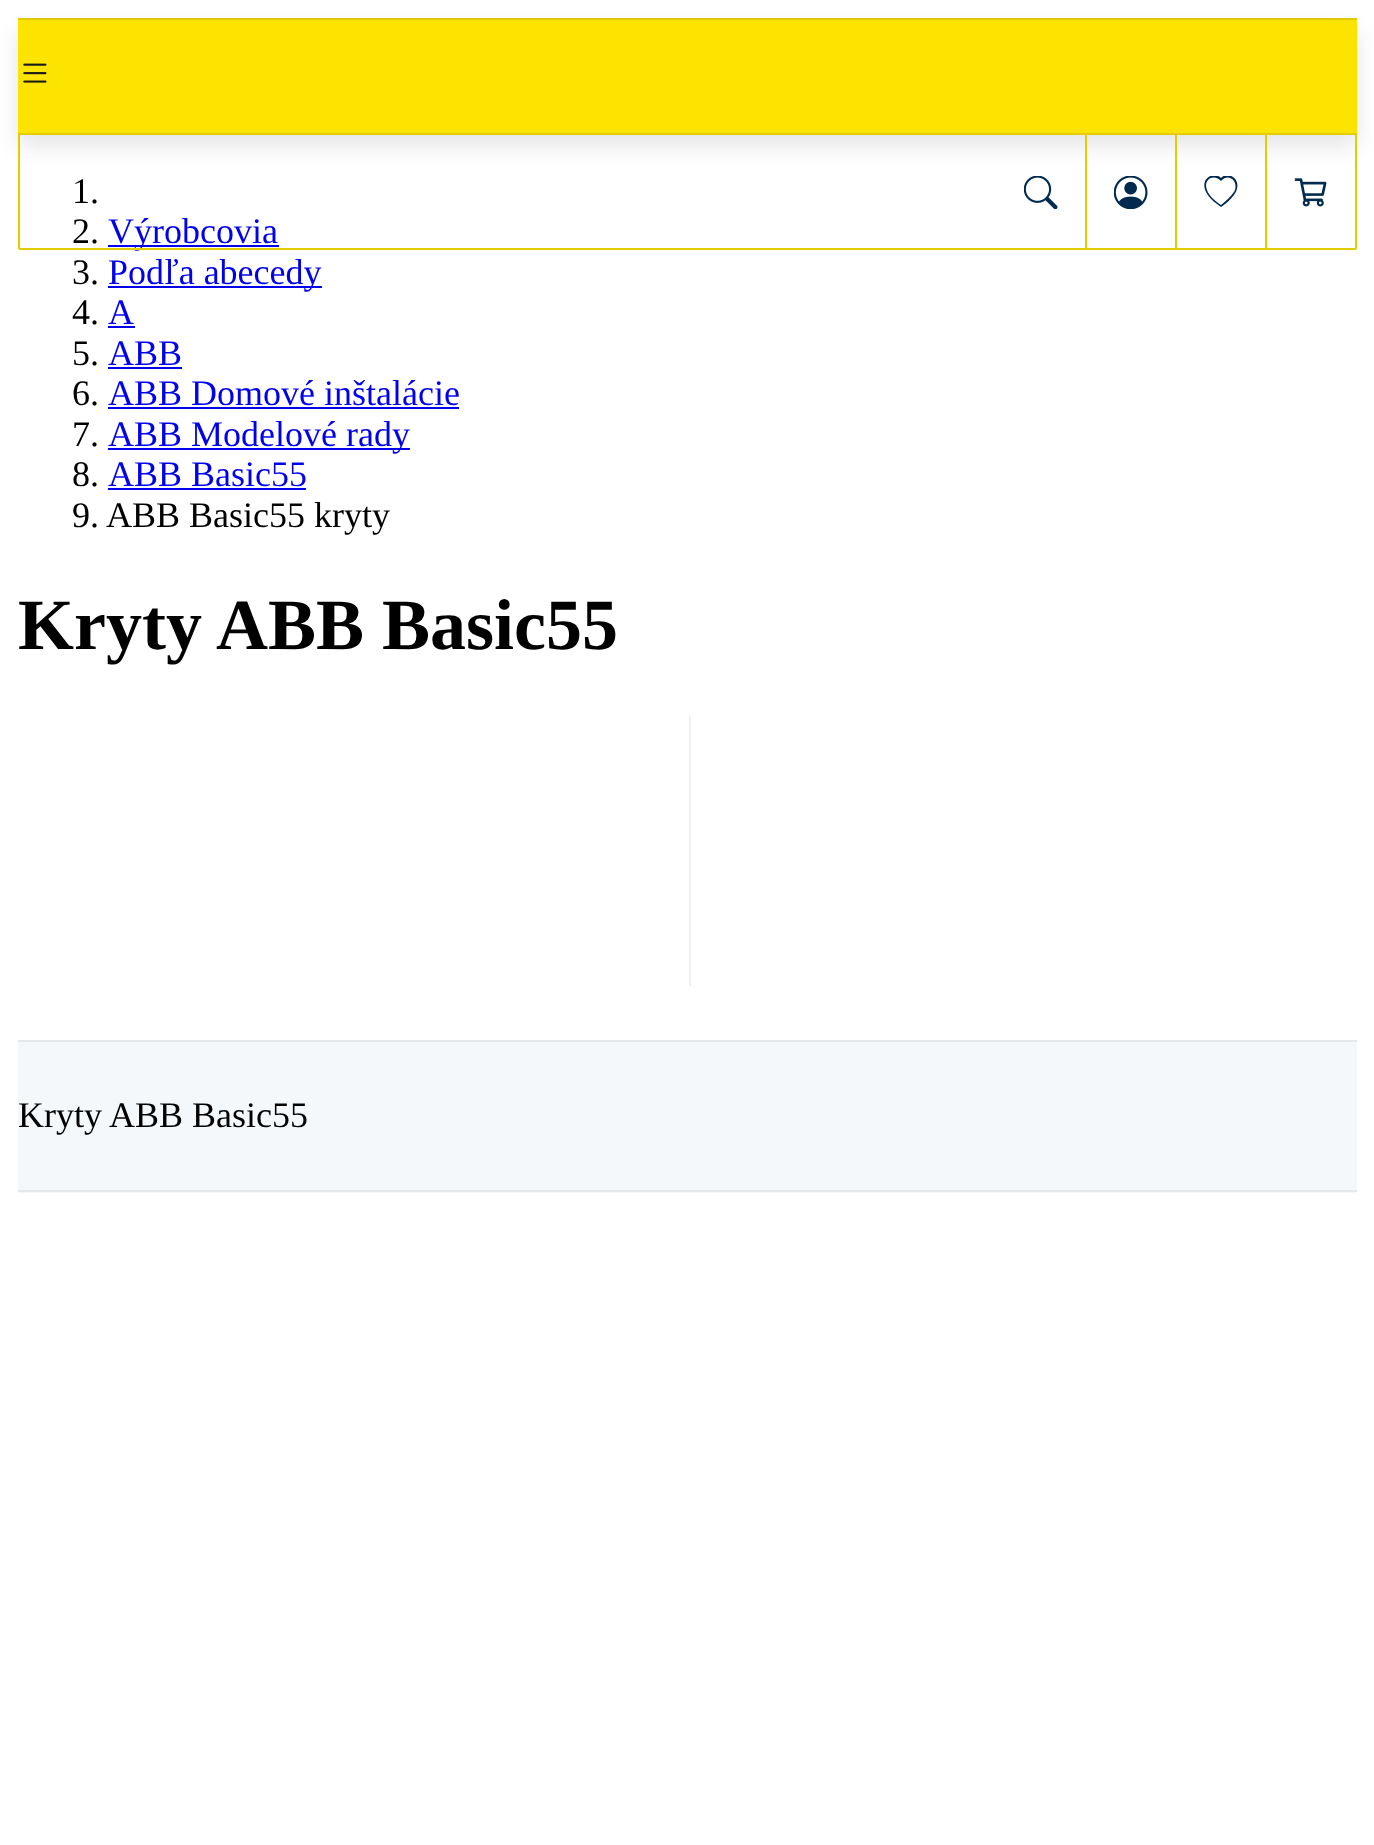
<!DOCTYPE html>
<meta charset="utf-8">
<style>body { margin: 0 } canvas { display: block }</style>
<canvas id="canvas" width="1374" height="1845"></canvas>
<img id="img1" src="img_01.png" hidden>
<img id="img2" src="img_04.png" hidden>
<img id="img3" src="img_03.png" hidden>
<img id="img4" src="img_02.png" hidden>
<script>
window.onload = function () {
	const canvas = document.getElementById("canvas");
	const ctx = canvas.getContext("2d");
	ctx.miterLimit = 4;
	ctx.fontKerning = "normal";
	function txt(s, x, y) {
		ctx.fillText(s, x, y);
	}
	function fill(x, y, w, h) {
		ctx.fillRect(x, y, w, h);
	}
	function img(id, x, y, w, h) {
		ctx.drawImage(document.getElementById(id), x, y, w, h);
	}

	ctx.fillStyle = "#FFFFFF";
	fill(0, 0, 1374, 1845);
	ctx.fillStyle = "#E3CC00";
	fill(18, 18, 1339, 2);
	ctx.fillStyle = "rgba(0, 0, 0, 0.1)";
	ctx.filter = "blur(11px)";
	ctx.beginPath();
	ctx.rect(18, 32, 1339, 114);
	ctx.fill();
	ctx.filter = "none";
	ctx.fillStyle = "#FCE300";
	fill(18, 20, 1339, 113);
	ctx.fillStyle = "#E3CC00";
	fill(18, 133, 1339, 2);
	img("img1", 23, 63, 24, 20);
	ctx.fillStyle = "#0000EE";
	fill(108, 245, 171, 2);
	fill(108, 286, 214, 2);
	fill(108, 326, 27, 2);
	fill(108, 367, 74, 2);
	fill(108, 407, 351, 2);
	fill(108, 448, 302, 2);
	fill(108, 488, 198, 2);
	ctx.fillStyle = "#EFEFEF";
	fill(689, 716, 2, 270);
	ctx.fillStyle = "#F5F8FA";
	fill(18, 1042, 1339, 151);
	ctx.fillStyle = "#E5E7EB";
	fill(18, 1040, 1339, 2);
	fill(18, 1190, 1339, 2);
	ctx.font = "36px Liberation Serif";
	ctx.fillStyle = "#000000";
	txt("1.", 72, 203);
	txt("2.", 72, 243);
	ctx.fillStyle = "#0000EE";
	txt("Výrobcovia", 108, 243);
	ctx.beginPath();
	ctx.roundRect(19, 134, 1337, 115, 1);
	ctx.strokeStyle = "#E3CC00";
	ctx.lineWidth = 2;
	ctx.stroke();
	img("img2", 1294, 178, 33, 29);
	ctx.save();
	ctx.beginPath();
	ctx.rect(1204, 176, 34, 33);
	ctx.clip();
	ctx.fillStyle = "#002A4E";
	ctx.beginPath();
	ctx.moveTo(1221, 181);
	ctx.bezierCurveTo(1213, 173, 1203, 180, 1207, 190);
	ctx.bezierCurveTo(1209, 196, 1215, 201, 1221, 205);
	ctx.bezierCurveTo(1226, 201, 1232, 196, 1235, 190);
	ctx.bezierCurveTo(1238, 180, 1228, 173, 1221, 181);
	ctx.closePath();
	ctx.moveTo(1221, 207);
	ctx.bezierCurveTo(1189, 186, 1211, 168, 1221, 178);
	ctx.bezierCurveTo(1230, 168, 1253, 186, 1221, 207);
	ctx.closePath();
	ctx.fill();
	ctx.restore();
	img("img3", 1114, 176, 34, 33);
	img("img4", 1024, 176, 34, 33);
	ctx.fillStyle = "#E3CC00";
	fill(1265, 135, 2, 113);
	fill(1175, 135, 2, 113);
	fill(1085, 135, 2, 113);
	ctx.fillStyle = "#000000";
	txt("3.", 72, 284);
	ctx.fillStyle = "#0000EE";
	txt("Podľa abecedy", 108, 284);
	ctx.fillStyle = "#000000";
	txt("4.", 72, 324);
	ctx.fillStyle = "#0000EE";
	txt("A", 108, 324);
	ctx.fillStyle = "#000000";
	txt("5.", 72, 365);
	ctx.fillStyle = "#0000EE";
	txt("ABB", 108, 365);
	ctx.fillStyle = "#000000";
	txt("6.", 72, 405);
	ctx.fillStyle = "#0000EE";
	txt("ABB Domové inštalácie", 108, 405);
	ctx.fillStyle = "#000000";
	txt("7.", 72, 446);
	ctx.fillStyle = "#0000EE";
	txt("ABB Modelové rady", 108, 446);
	ctx.fillStyle = "#000000";
	txt("8.", 72, 486);
	ctx.fillStyle = "#0000EE";
	txt("ABB Basic55", 108, 486);
	ctx.fillStyle = "#000000";
	txt("9. ABB Basic55 kryty", 72, 527);
	ctx.font = "bold 72px Liberation Serif";
	txt("Kryty ABB Basic55", 18, 649);
	ctx.font = "36px Liberation Serif";
	txt("Kryty ABB Basic55", 18, 1127);
};
</script>
